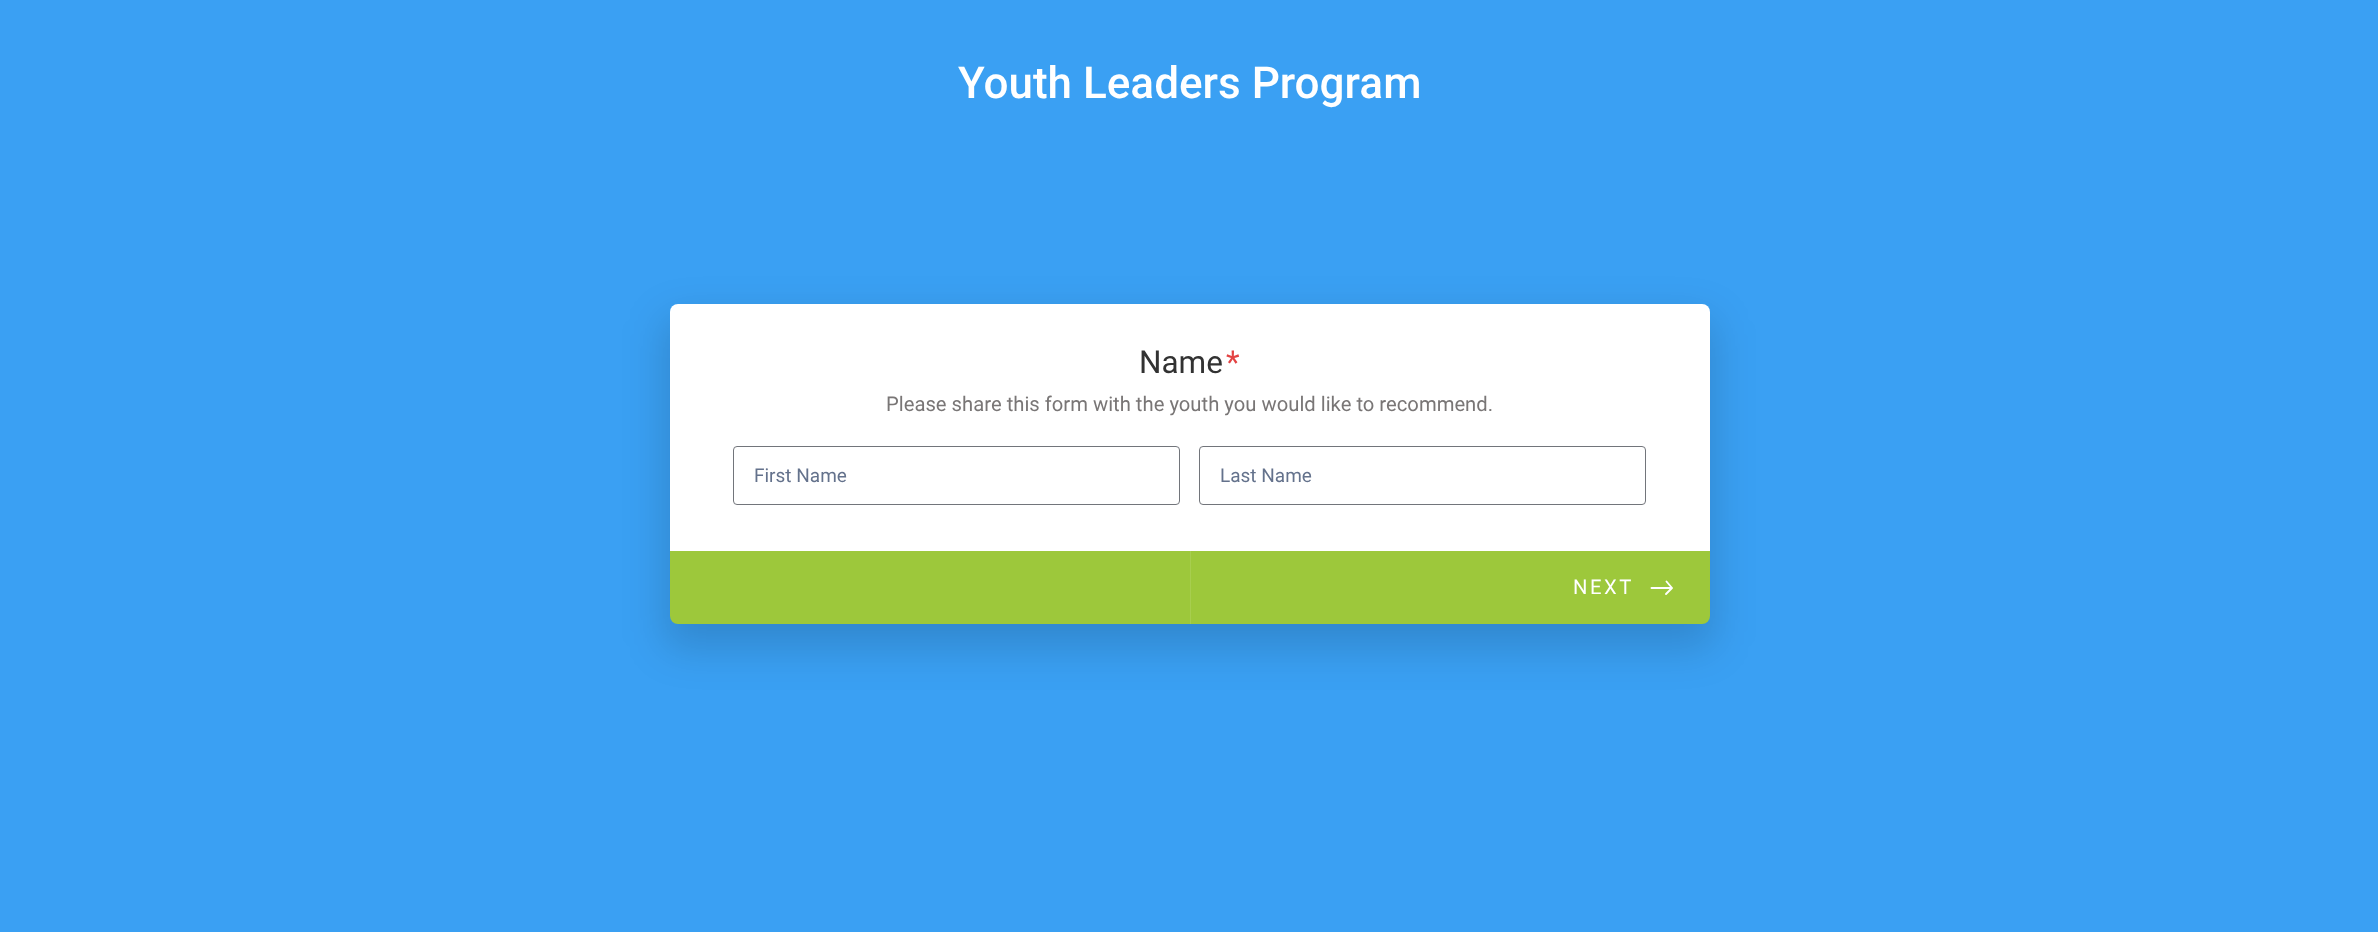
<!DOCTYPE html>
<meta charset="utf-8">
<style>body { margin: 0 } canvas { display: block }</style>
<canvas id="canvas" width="2378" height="932"></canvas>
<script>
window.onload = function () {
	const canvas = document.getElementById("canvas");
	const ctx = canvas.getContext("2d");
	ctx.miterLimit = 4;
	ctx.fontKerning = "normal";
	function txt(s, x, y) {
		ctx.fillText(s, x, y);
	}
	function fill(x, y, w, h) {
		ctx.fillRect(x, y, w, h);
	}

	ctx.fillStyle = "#3AA0F3";
	fill(0, 0, 2378, 932);
	ctx.fillStyle = "rgba(0, 0, 0, 0.15)";
	ctx.filter = "blur(20.5px)";
	ctx.beginPath();
	ctx.roundRect(664, 318, 1050, 330, 13);
	ctx.fill();
	ctx.filter = "none";
	ctx.fillStyle = "#FFFFFF";
	ctx.beginPath();
	ctx.roundRect(670, 304, 1040, 247, [8, 8, 0, 0]);
	ctx.fill();
	ctx.beginPath();
	ctx.roundRect(733.5, 446.5, 446, 58, 3.5);
	ctx.strokeStyle = "#72757B";
	ctx.stroke();
	ctx.beginPath();
	ctx.roundRect(1199.5, 446.5, 446, 58, 3.5);
	ctx.stroke();
	ctx.fillStyle = "#9DC83B";
	ctx.beginPath();
	ctx.roundRect(670, 551, 1040, 73, [0, 0, 8, 8]);
	ctx.fill();
	ctx.fillStyle = "#A7CE4F";
	fill(1190, 551, 1, 73);
	ctx.beginPath();
	ctx.moveTo(1651.5, 588);
	ctx.lineTo(1672, 588);
	ctx.lineTo(1666, 594);
	ctx.moveTo(1666.5, 581.5);
	ctx.lineTo(1672, 588);
	ctx.lineTo(1669, 591);
	ctx.strokeStyle = "#FFFFFF";
	ctx.lineWidth = 1.9;
	ctx.lineCap = "round";
	ctx.lineJoin = "round";
	ctx.stroke();
	ctx.font = "500 44px Roboto";
	ctx.fillStyle = "#FFFFFF";
	txt("Youth Leaders Program", 958, 98);
	ctx.font = "31.5px Roboto";
	ctx.fillStyle = "#323232";
	txt("Name", 1139, 373);
	ctx.fillStyle = "#E34343";
	txt("*", 1226, 373);
	ctx.font = "20.25px Roboto";
	ctx.fillStyle = "#797676";
	txt("Please share this form with the youth you would like to recommend.", 886, 411);
	ctx.font = "19px Roboto";
	ctx.fillStyle = "#64728C";
	txt("First Name", 754, 482);
	txt("Last Name", 1220, 482);
	ctx.letterSpacing = "2.5px";
	ctx.font = "20.25px Roboto";
	ctx.fillStyle = "#FFFFFF";
	txt("NEXT", 1573, 594);
};
</script>
